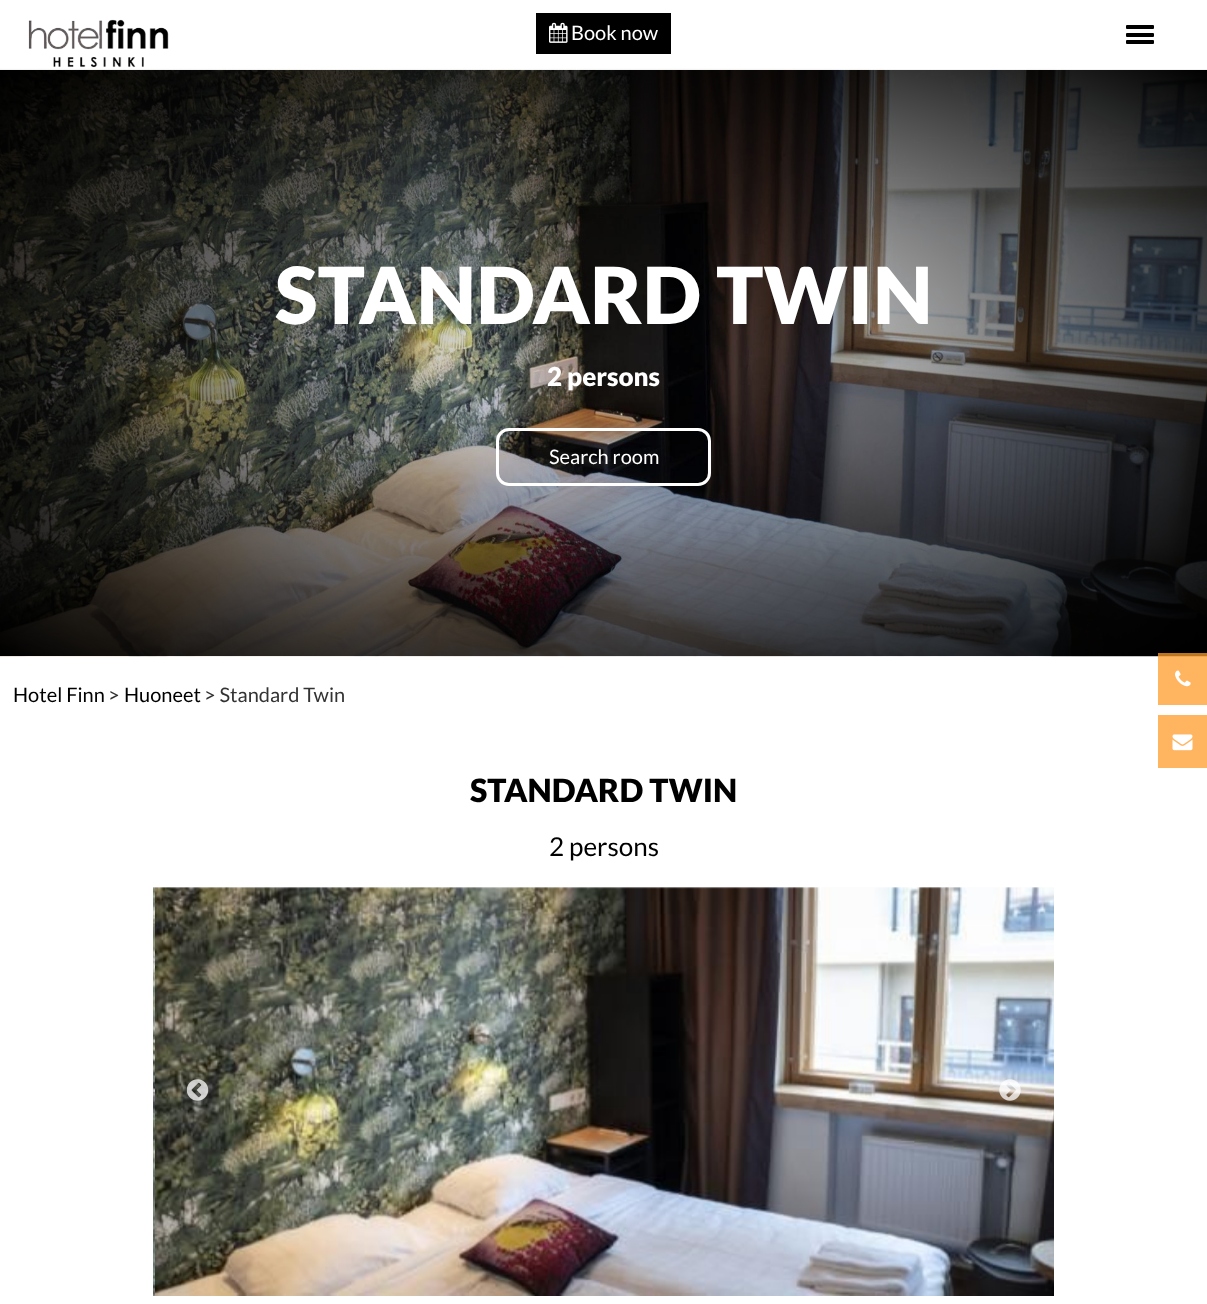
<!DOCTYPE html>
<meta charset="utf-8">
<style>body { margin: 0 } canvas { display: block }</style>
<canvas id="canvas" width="1207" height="1304"></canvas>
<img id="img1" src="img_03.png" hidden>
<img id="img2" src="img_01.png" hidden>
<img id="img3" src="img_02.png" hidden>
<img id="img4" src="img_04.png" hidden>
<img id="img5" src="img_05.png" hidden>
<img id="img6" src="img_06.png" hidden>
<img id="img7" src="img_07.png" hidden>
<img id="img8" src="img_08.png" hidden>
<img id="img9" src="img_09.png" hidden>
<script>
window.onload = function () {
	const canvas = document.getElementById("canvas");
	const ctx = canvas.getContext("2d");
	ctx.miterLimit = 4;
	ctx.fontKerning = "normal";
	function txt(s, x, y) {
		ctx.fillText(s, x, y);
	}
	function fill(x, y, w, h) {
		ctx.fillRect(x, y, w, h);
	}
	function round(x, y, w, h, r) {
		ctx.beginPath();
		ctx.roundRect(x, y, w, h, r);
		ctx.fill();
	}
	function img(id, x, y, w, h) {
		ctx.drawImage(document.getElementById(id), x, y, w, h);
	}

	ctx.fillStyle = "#FFFFFF";
	fill(0, 0, 1207, 1304);
	img("img1", 0, 68, 1207, 589);
	ctx.fillStyle = "rgba(255, 255, 255, 0.95)";
	fill(0, 68, 1207, 2);
	img("img2", 28, 19, 141, 49);
	ctx.fillStyle = "#000000";
	round(1126, 25, 28, 4, 1);
	round(1126, 33, 28, 4, 1);
	round(1126, 40, 28, 4, 1);
	fill(536, 13, 135, 41);
	img("img3", 549, 22, 19, 21);
	ctx.beginPath();
	ctx.roundRect(497.5, 429.5, 212, 55, 11.5);
	ctx.strokeStyle = "#FFFFFF";
	ctx.lineWidth = 3;
	ctx.stroke();
	ctx.fillStyle = "rgba(255, 156, 41, 0.75)";
	fill(1158, 653, 49, 52);
	img("img4", 1175, 670, 16, 17);
	ctx.fillStyle = "#FFB55F";
	fill(1158, 715, 49, 53);
	img("img5", 1172, 734, 21, 17);
	img("img6", 153, 887, 2, 409);
	img("img7", 155, 887, 899, 409);
	img("img8", 186, 1079, 23, 22);
	img("img9", 999, 1079, 22, 22);
	ctx.font = "20px Lato";
	ctx.fillStyle = "#FFFFFF";
	txt("Book now", 571, 40);
	ctx.font = "900 78.75px Lato";
	txt("STANDARD TWIN", 275, 324);
	ctx.font = "900 26px Lato";
	txt("2 persons", 547, 386);
	ctx.font = "20px Lato";
	txt("Search room", 549, 464);
	ctx.fillStyle = "#000000";
	txt("Hotel Finn", 13, 702);
	ctx.fillStyle = "#333333";
	txt(">", 108, 702);
	ctx.fillStyle = "#000000";
	txt("Huoneet", 124, 702);
	ctx.fillStyle = "#333333";
	txt("> Standard Twin", 204, 702);
	ctx.font = "900 32px Lato";
	ctx.fillStyle = "#000000";
	txt("STANDARD TWIN", 470, 802);
	ctx.font = "26px Lato";
	txt("2 persons", 549, 856);
};
</script>
